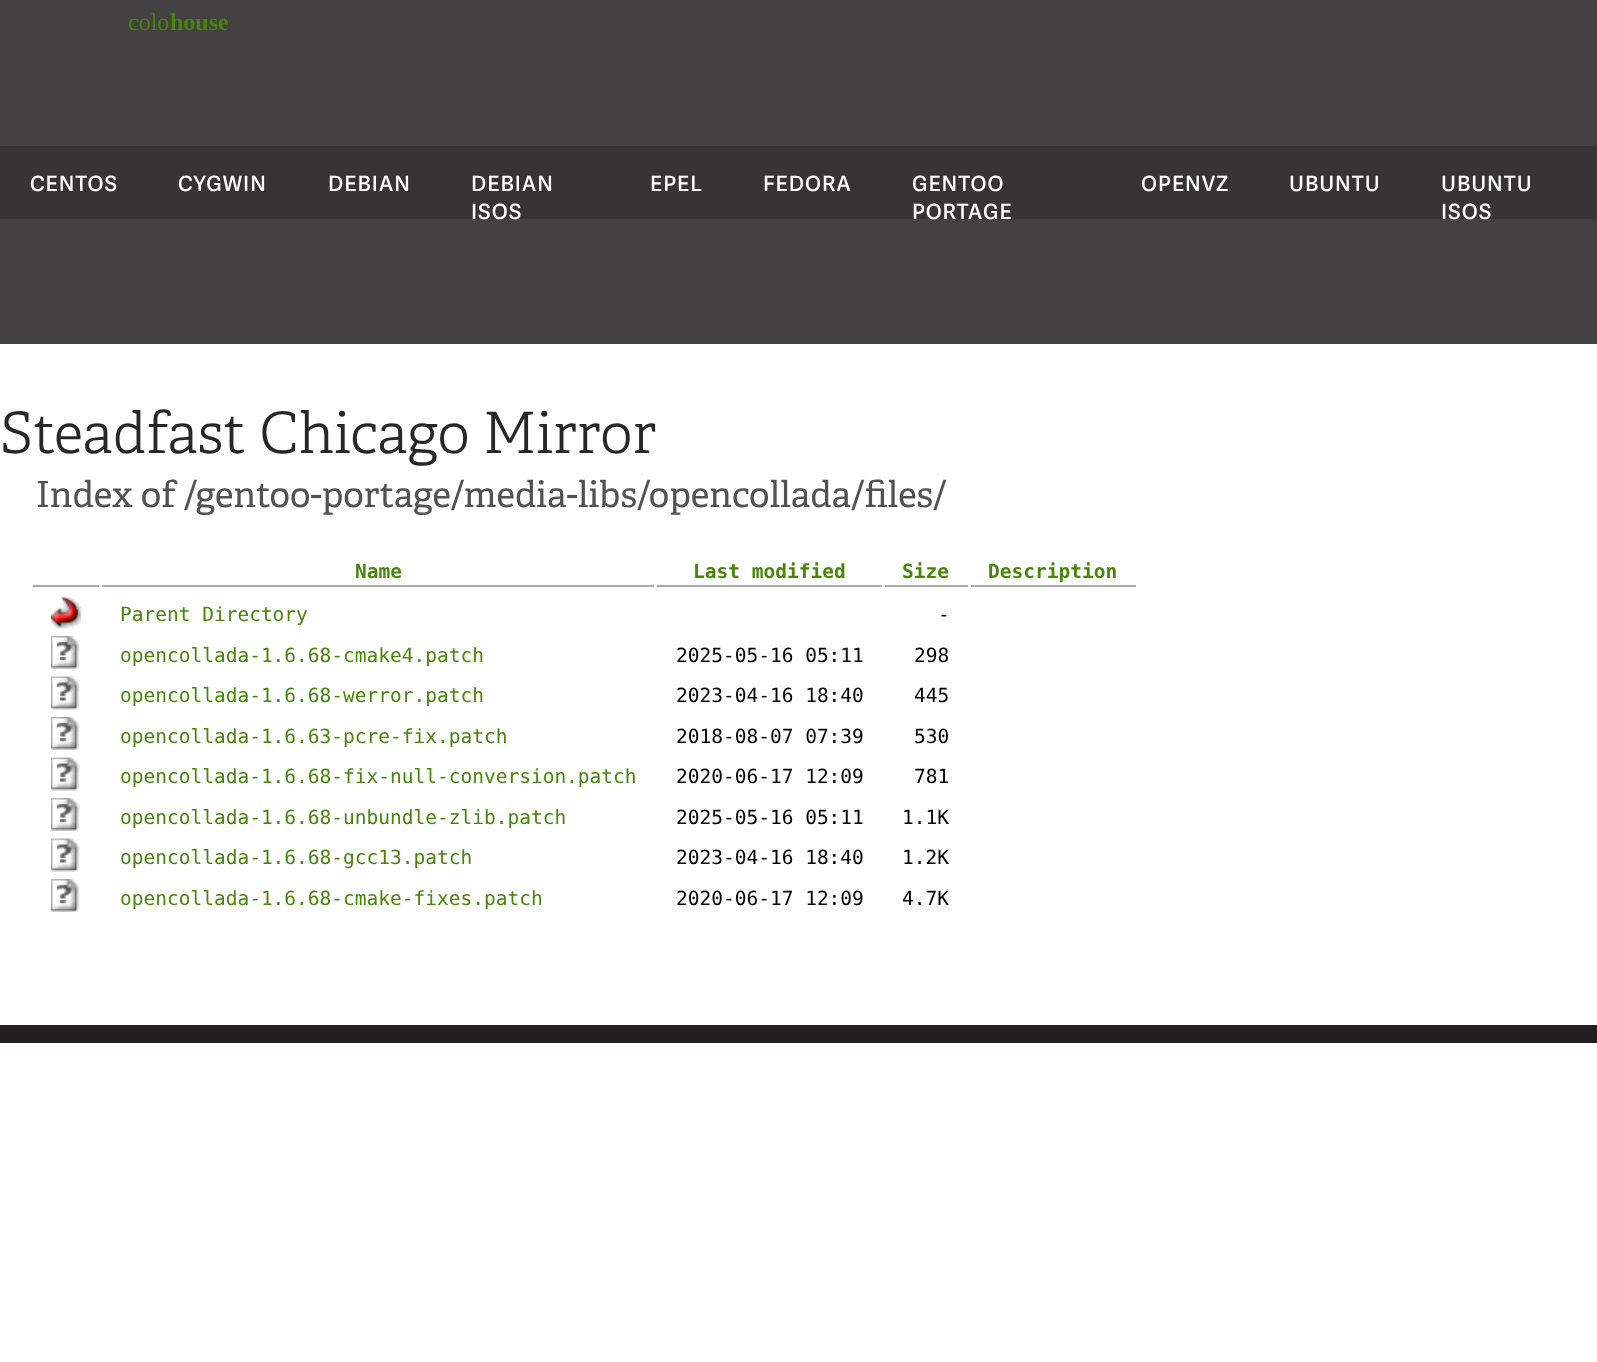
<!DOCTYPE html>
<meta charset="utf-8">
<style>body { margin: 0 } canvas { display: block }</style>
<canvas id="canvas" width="1597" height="1362"></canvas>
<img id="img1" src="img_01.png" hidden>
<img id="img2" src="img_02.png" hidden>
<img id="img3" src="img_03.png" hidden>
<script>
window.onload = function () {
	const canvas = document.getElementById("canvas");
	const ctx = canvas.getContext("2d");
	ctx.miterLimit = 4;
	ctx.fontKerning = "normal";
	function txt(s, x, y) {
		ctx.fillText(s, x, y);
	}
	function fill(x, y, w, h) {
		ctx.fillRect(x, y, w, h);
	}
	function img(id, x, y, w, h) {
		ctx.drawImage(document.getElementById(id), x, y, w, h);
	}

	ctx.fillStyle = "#FFFFFF";
	fill(0, 0, 1597, 1362);
	ctx.fillStyle = "#444142";
	fill(0, 0, 1597, 344);
	ctx.fillStyle = "#363435";
	fill(0, 146, 1597, 73);
	ctx.fillStyle = "#AAAAAA";
	fill(102, 585, 552, 2);
	fill(657, 585, 225, 2);
	fill(885, 585, 83, 2);
	fill(971, 585, 165, 2);
	fill(33, 585, 66, 2);
	img("img1", 51, 596, 30, 33);
	img("img2", 51, 636, 29, 33);
	img("img3", 51, 676, 29, 34);
	img("img2", 51, 717, 29, 33);
	img("img3", 51, 757, 29, 34);
	img("img2", 51, 798, 29, 33);
	img("img3", 51, 838, 29, 34);
	img("img2", 51, 879, 29, 33);
	ctx.fillStyle = "#231F20";
	fill(0, 1025, 1597, 18);
	ctx.font = "24px Liberation Serif";
	ctx.fillStyle = "#478609";
	txt("colo", 128, 30);
	ctx.font = "bold 24px Liberation Serif";
	txt("house", 170, 30);
	ctx.letterSpacing = "1px";
	ctx.font = "600 21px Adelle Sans";
	ctx.fillStyle = "#FFFFFF";
	txt("CENTOS", 30, 191);
	txt("CYGWIN", 178, 191);
	txt("DEBIAN", 328, 191);
	txt("DEBIAN", 471, 191);
	txt("ISOS", 471, 219);
	txt("EPEL", 650, 191);
	txt("FEDORA", 763, 191);
	txt("GENTOO", 912, 191);
	txt("PORTAGE", 912, 219);
	txt("OPENVZ", 1141, 191);
	txt("UBUNTU", 1289, 191);
	txt("UBUNTU", 1441, 191);
	txt("ISOS", 1441, 219);
	ctx.letterSpacing = "0px";
	ctx.font = "300 57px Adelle";
	ctx.fillStyle = "#272727";
	txt("Steadfast Chicago Mirror", 0, 453);
	ctx.font = "36px Adelle";
	ctx.fillStyle = "#525252";
	txt("Index of /gentoo-portage/media-libs/opencollada/files/", 36, 507);
	ctx.font = "bold 19.5px DejaVu Sans Mono";
	ctx.fillStyle = "#478609";
	txt("Name", 355, 578);
	txt("Last modified", 693, 578);
	txt("Size", 902, 578);
	txt("Description", 988, 578);
	ctx.font = "19.5px DejaVu Sans Mono";
	txt("Parent Directory", 120, 621);
	ctx.fillStyle = "#000000";
	txt("-", 938, 621);
	ctx.fillStyle = "#478609";
	txt("opencollada-1.6.68-cmake4.patch", 120, 662);
	ctx.fillStyle = "#000000";
	txt("2025-05-16 05:11", 676, 662);
	txt("298", 914, 662);
	ctx.fillStyle = "#478609";
	txt("opencollada-1.6.68-werror.patch", 120, 702);
	ctx.fillStyle = "#000000";
	txt("2023-04-16 18:40", 676, 702);
	txt("445", 914, 702);
	ctx.fillStyle = "#478609";
	txt("opencollada-1.6.63-pcre-fix.patch", 120, 743);
	ctx.fillStyle = "#000000";
	txt("2018-08-07 07:39", 676, 743);
	txt("530", 914, 743);
	ctx.fillStyle = "#478609";
	txt("opencollada-1.6.68-fix-null-conversion.patch", 120, 783);
	ctx.fillStyle = "#000000";
	txt("2020-06-17 12:09", 676, 783);
	txt("781", 914, 783);
	ctx.fillStyle = "#478609";
	txt("opencollada-1.6.68-unbundle-zlib.patch", 120, 824);
	ctx.fillStyle = "#000000";
	txt("2025-05-16 05:11", 676, 824);
	txt("1.1K", 902, 824);
	ctx.fillStyle = "#478609";
	txt("opencollada-1.6.68-gcc13.patch", 120, 864);
	ctx.fillStyle = "#000000";
	txt("2023-04-16 18:40", 676, 864);
	txt("1.2K", 902, 864);
	ctx.fillStyle = "#478609";
	txt("opencollada-1.6.68-cmake-fixes.patch", 120, 905);
	ctx.fillStyle = "#000000";
	txt("2020-06-17 12:09", 676, 905);
	txt("4.7K", 902, 905);
};
</script>
